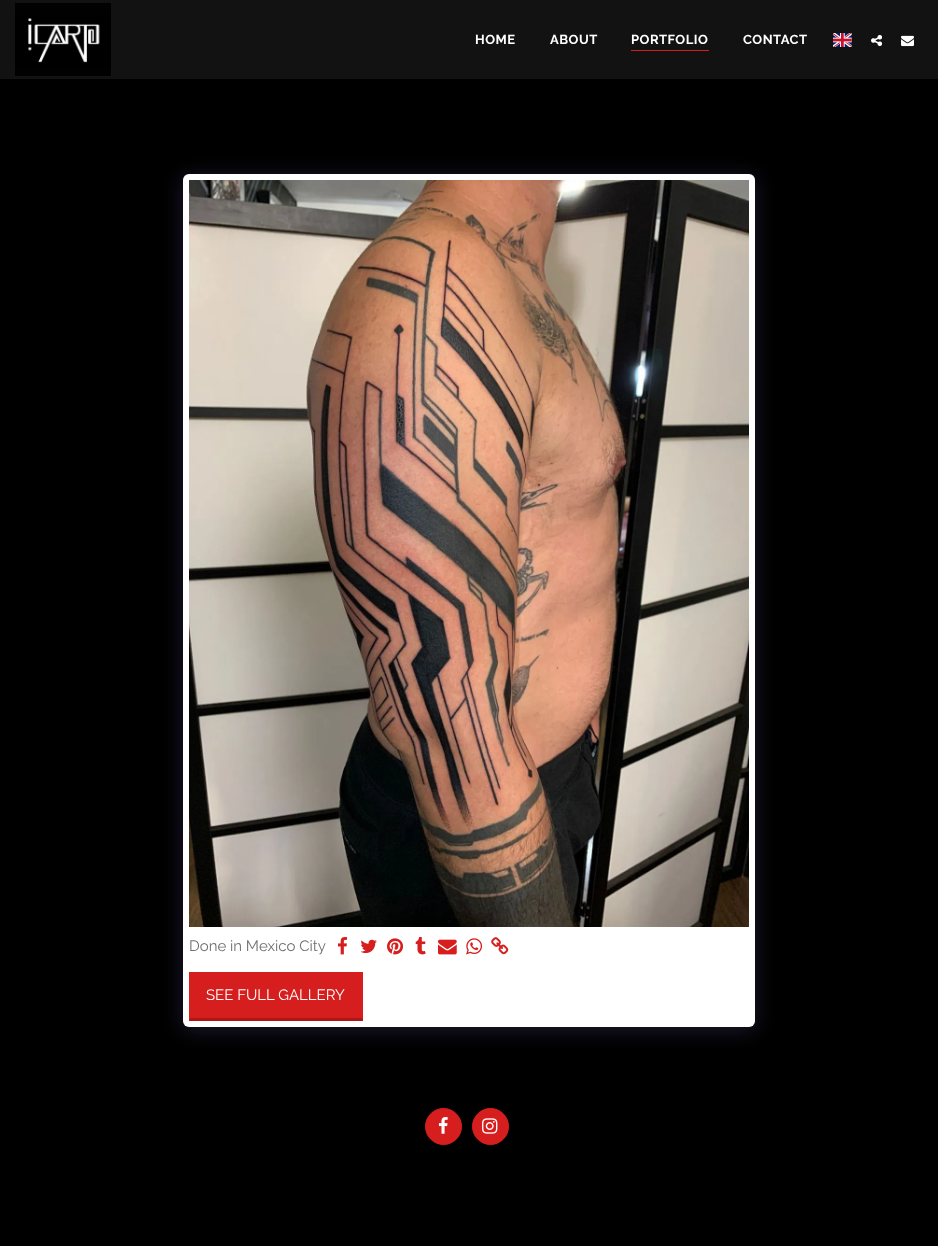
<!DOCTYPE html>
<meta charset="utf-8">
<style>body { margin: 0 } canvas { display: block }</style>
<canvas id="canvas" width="938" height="1246"></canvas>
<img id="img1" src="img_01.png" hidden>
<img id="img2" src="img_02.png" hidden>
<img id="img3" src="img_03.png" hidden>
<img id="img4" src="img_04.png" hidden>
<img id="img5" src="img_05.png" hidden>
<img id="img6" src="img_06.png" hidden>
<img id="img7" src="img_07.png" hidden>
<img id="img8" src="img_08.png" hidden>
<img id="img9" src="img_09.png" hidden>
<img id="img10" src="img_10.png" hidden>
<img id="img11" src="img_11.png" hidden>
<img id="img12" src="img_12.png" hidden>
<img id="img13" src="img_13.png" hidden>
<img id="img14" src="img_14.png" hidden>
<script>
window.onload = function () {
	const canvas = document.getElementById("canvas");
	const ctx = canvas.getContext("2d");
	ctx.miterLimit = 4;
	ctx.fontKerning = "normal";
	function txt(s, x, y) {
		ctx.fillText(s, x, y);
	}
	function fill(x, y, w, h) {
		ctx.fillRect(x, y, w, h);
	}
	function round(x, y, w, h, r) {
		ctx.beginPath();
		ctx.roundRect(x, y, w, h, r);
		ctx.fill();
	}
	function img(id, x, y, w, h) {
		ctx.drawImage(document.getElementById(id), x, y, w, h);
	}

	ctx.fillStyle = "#000000";
	fill(0, 0, 938, 1246);
	ctx.fillStyle = "#121212";
	fill(0, 0, 938, 79);
	img("img1", 15, 3, 96, 73);
	ctx.fillStyle = "#D71E1E";
	fill(631, 50, 78, 1);
	img("img2", 833, 33, 19, 14);
	img("img3", 871, 34, 11, 13);
	img("img4", 901, 35, 13, 12);
	ctx.fillStyle = "rgba(77, 63, 122, 0.4)";
	ctx.filter = "blur(10px)";
	ctx.beginPath();
	ctx.roundRect(183, 177, 572, 853, 6);
	ctx.fill();
	ctx.filter = "none";
	ctx.fillStyle = "#FFFFFF";
	round(183, 174, 572, 853, 6);
	img("img5", 189, 180, 560, 747);
	img("img6", 338, 937, 10, 18);
	img("img7", 360, 939, 17, 15);
	img("img8", 387, 938, 16, 17);
	img("img9", 415, 937, 11, 18);
	img("img10", 438, 939, 19, 16);
	img("img11", 466, 938, 16, 17);
	img("img12", 491, 937, 18, 18);
	ctx.fillStyle = "#D71E1E";
	fill(189, 972, 174, 49);
	ctx.fillStyle = "#AC1818";
	ctx.beginPath();
	ctx.moveTo(363, 1021);
	ctx.lineTo(189, 1021);
	ctx.lineTo(190, 1018);
	ctx.lineTo(362, 1018);
	ctx.closePath();
	ctx.fill();
	ctx.fillStyle = "#D71E1E";
	ctx.beginPath();
	ctx.moveTo(189, 1021);
	ctx.lineTo(189, 972);
	ctx.lineTo(190, 973);
	ctx.lineTo(190, 1018);
	ctx.closePath();
	ctx.fill();
	ctx.beginPath();
	ctx.arc(443.5, 1126.5, 18, 0, Math.PI * 2);
	ctx.fill();
	ctx.strokeStyle = "#D71E1E";
	ctx.stroke();
	img("img13", 438, 1117, 10, 17);
	ctx.beginPath();
	ctx.arc(490.5, 1126.5, 18, 0, Math.PI * 2);
	ctx.fill();
	ctx.stroke();
	img("img14", 482, 1118, 16, 16);
	ctx.letterSpacing = "0.5px";
	ctx.font = "bold 13px Raleway";
	ctx.fillStyle = "#FFFFFF";
	txt("HOME", 475, 44);
	txt("ABOUT", 550, 44);
	txt("PORTFOLIO", 631, 44);
	txt("CONTACT", 743, 44);
	ctx.letterSpacing = "0px";
	ctx.font = "15px Raleway";
	ctx.fillStyle = "#707070";
	txt("Done in Mexico City", 189, 951);
	ctx.fillStyle = "#FFFFFF";
	txt("SEE FULL GALLERY", 206, 1000);
};
</script>
